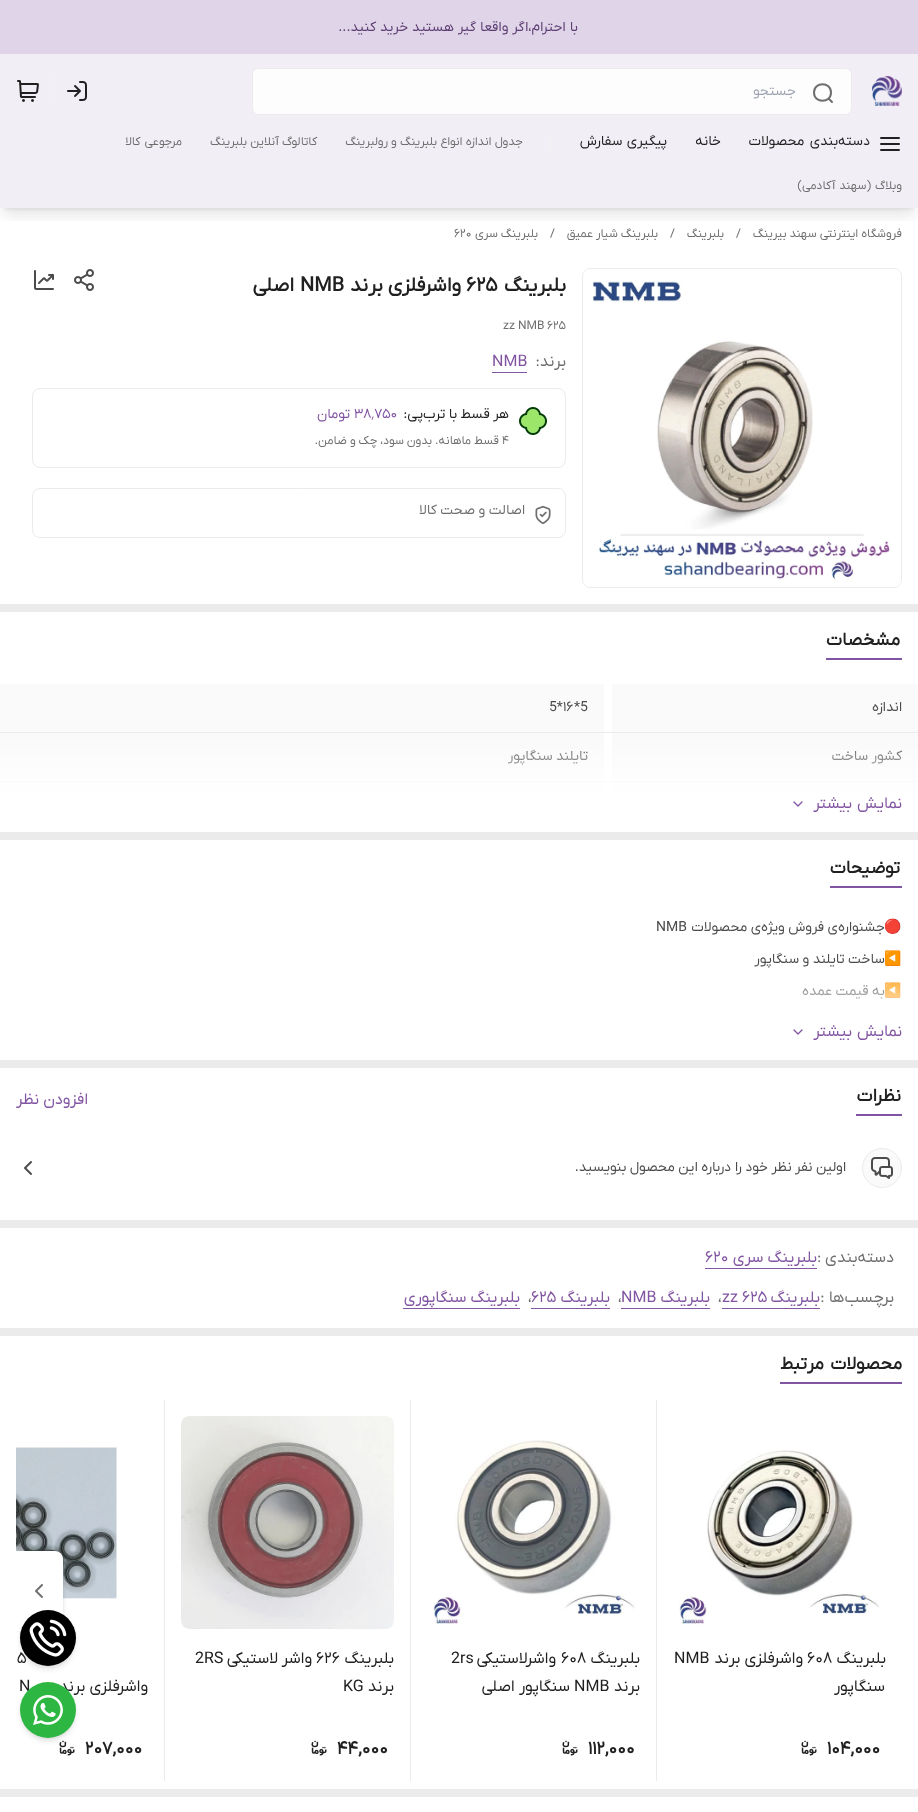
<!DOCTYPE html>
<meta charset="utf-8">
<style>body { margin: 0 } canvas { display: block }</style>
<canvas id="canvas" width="918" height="1812"></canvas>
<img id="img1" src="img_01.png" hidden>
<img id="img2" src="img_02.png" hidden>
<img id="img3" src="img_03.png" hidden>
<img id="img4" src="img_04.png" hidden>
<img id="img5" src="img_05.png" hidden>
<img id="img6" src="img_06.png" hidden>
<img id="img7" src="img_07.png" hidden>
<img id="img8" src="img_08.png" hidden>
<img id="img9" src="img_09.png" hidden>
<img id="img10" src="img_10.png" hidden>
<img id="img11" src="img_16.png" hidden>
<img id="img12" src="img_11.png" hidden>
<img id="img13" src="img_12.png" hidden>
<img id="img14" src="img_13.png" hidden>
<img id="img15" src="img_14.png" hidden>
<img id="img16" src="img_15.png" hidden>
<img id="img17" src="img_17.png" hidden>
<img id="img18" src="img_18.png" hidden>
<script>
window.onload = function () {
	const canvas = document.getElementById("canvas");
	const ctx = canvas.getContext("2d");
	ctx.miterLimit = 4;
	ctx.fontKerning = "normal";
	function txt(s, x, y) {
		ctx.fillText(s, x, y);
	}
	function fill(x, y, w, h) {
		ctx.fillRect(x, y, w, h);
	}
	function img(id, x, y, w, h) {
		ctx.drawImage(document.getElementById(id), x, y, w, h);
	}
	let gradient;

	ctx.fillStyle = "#FFFFFF";
	fill(0, 0, 918, 1812);
	ctx.fillStyle = "#F2EEF6";
	fill(0, 54, 918, 154);
	ctx.fillStyle = "#E0D4E8";
	fill(0, 0, 918, 54);
	img("img1", 872, 76, 30, 30);
	ctx.fillStyle = "#FEFDFE";
	ctx.beginPath();
	ctx.roundRect(252.5, 68.5, 599, 46, 5.5);
	ctx.fill();
	ctx.strokeStyle = "#EBEBEB";
	ctx.stroke();
	ctx.beginPath();
	ctx.moveTo(832, 102);
	ctx.lineTo(828.5, 98.5);
	ctx.moveTo(831, 92.5);
	ctx.bezierCurveTo(831, 103.5, 814, 103.5, 814, 92.5);
	ctx.bezierCurveTo(814, 81.5, 831, 81.5, 831, 92.5);
	ctx.strokeStyle = "#6E6E6E";
	ctx.lineWidth = 2;
	ctx.lineCap = "round";
	ctx.lineJoin = "round";
	ctx.stroke();
	img("img2", 67, 81, 20, 20);
	ctx.fillStyle = "#F1F1F1";
	fill(52, 74, 1, 34);
	img("img3", 17, 80, 22, 22);
	ctx.save();
	ctx.beginPath();
	ctx.rect(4, 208, 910, 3);
	ctx.clip();
	ctx.fillStyle = "rgba(0, 0, 0, 0.1)";
	ctx.filter = "blur(3px)";
	ctx.beginPath();
	ctx.rect(4, 136, 910, 72);
	ctx.fill();
	ctx.filter = "none";
	ctx.restore();
	ctx.save();
	ctx.beginPath();
	ctx.rect(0, 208, 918, 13);
	ctx.clip();
	ctx.fillStyle = "rgba(0, 0, 0, 0.1)";
	ctx.filter = "blur(7.5px)";
	ctx.beginPath();
	ctx.rect(3, 141, 912, 74);
	ctx.fill();
	ctx.filter = "none";
	ctx.restore();
	ctx.beginPath();
	ctx.moveTo(881, 144);
	ctx.lineTo(899, 144);
	ctx.moveTo(881, 138);
	ctx.lineTo(899, 138);
	ctx.moveTo(881, 150);
	ctx.lineTo(899, 150);
	ctx.strokeStyle = "#202021";
	ctx.stroke();
	fill(551, 132, 1, 24);
	ctx.beginPath();
	ctx.roundRect(582.5, 268.5, 319, 319, 7.5);
	ctx.strokeStyle = "#EBEBEB";
	ctx.lineWidth = 1;
	ctx.lineJoin = "miter";
	ctx.stroke();
	img("img4", 583, 269, 318, 318);
	img("img5", 74, 269, 20, 22);
	img("img6", 34, 270, 20, 20);
	ctx.fillStyle = "#8255A2";
	fill(492, 372, 35, 1);
	ctx.beginPath();
	ctx.roundRect(32.5, 388.5, 533, 79, 7.5);
	ctx.stroke();
	img("img7", 519, 407, 28, 28);
	ctx.beginPath();
	ctx.roundRect(32.5, 488.5, 533, 49, 7.5);
	ctx.stroke();
	img("img8", 535, 505, 16, 19);
	ctx.fillStyle = "#EBEBEB";
	fill(0, 604, 918, 8);
	fill(0, 832, 918, 8);
	ctx.fillStyle = "#8255A2";
	fill(826, 658, 76, 2);
	ctx.fillStyle = "#EBEBEB";
	fill(0, 732, 918, 1);
	ctx.fillStyle = "#FAFAFA";
	fill(612, 684, 306, 48);
	fill(0, 684, 604, 48);
	ctx.fillStyle = "#EBEBEB";
	fill(0, 781, 918, 1);
	ctx.fillStyle = "#FAFAFA";
	fill(612, 733, 306, 48);
	fill(0, 733, 604, 48);
	fill(612, 782, 306, 16);
	fill(0, 782, 604, 16);
	ctx.beginPath();
	ctx.moveTo(794, 802);
	ctx.lineTo(798, 806);
	ctx.lineTo(802, 802);
	ctx.strokeStyle = "#8255A2";
	ctx.lineWidth = 1.3;
	ctx.lineJoin = "round";
	ctx.stroke();
	ctx.fillStyle = "#EBEBEB";
	fill(0, 1060, 918, 8);
	ctx.fillStyle = "#8255A2";
	fill(830, 886, 72, 2);
	ctx.beginPath();
	ctx.moveTo(794, 1030);
	ctx.lineTo(798, 1034);
	ctx.lineTo(802, 1030);
	ctx.stroke();
	fill(856, 1114, 46, 2);
	ctx.fillStyle = "#FAFAFA";
	ctx.beginPath();
	ctx.arc(882, 1168, 19.5, 0, Math.PI * 2);
	ctx.fill();
	ctx.strokeStyle = "#EBEBEB";
	ctx.lineWidth = 1;
	ctx.stroke();
	img("img9", 871, 1157, 22, 22);
	img("img10", 24, 1161, 8, 14);
	ctx.fillStyle = "#EBEBEB";
	fill(0, 1220, 918, 8);
	ctx.fillStyle = "#8255A2";
	fill(705, 1268, 112, 1);
	fill(722, 1308, 98, 1);
	fill(621, 1308, 89, 1);
	fill(531, 1308, 79, 1);
	fill(403, 1308, 117, 1);
	ctx.fillStyle = "#EBEBEB";
	fill(0, 1328, 918, 8);
	ctx.fillStyle = "#8255A2";
	fill(780, 1382, 122, 2);
	img("img11", 16, 1447, 101, 152);
	ctx.save();
	ctx.beginPath();
	ctx.moveTo(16, 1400);
	ctx.lineTo(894, 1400);
	ctx.bezierCurveTo(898.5, 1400, 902, 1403.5, 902, 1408);
	ctx.lineTo(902, 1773);
	ctx.bezierCurveTo(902, 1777.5, 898.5, 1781, 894, 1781);
	ctx.lineTo(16, 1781);
	ctx.closePath();
	ctx.clip();
	ctx.fillStyle = "rgba(0, 0, 0, 0.15)";
	ctx.filter = "blur(2px)";
	ctx.beginPath();
	ctx.roundRect(15, 1551, 48, 80, 8);
	ctx.fill();
	ctx.filter = "none";
	ctx.restore();
	ctx.fillStyle = "#FFFFFF";
	ctx.beginPath();
	ctx.roundRect(16, 1551, 47, 80, [0, 8, 8, 0]);
	ctx.fill();
	img("img12", 35, 1584, 8, 14);
	ctx.fillStyle = "#EBEBEB";
	fill(656, 1400, 1, 381);
	img("img13", 679, 1450, 201, 176);
	img("img14", 801, 1740, 16, 16);
	fill(410, 1400, 1, 381);
	img("img15", 433, 1440, 202, 184);
	img("img14", 562, 1740, 16, 16);
	fill(164, 1400, 1, 381);
	img("img16", 181, 1416, 213, 213);
	img("img14", 311, 1740, 16, 16);
	img("img14", 59, 1740, 16, 16);
	fill(0, 1789, 918, 8);
	ctx.fillStyle = "rgba(0, 0, 0, 0.1)";
	ctx.filter = "blur(2px)";
	ctx.beginPath();
	ctx.roundRect(22, 1614, 52, 52, 26);
	ctx.fill();
	ctx.filter = "none";
	ctx.filter = "blur(3px)";
	ctx.beginPath();
	ctx.roundRect(21, 1615, 54, 54, 27);
	ctx.fill();
	ctx.filter = "none";
	ctx.filter = "blur(2px)";
	ctx.beginPath();
	ctx.roundRect(22, 1686, 52, 52, 26);
	ctx.fill();
	ctx.filter = "none";
	ctx.filter = "blur(3px)";
	ctx.beginPath();
	ctx.roundRect(21, 1687, 54, 54, 27);
	ctx.fill();
	ctx.filter = "none";
	ctx.wordSpacing = "0.5px";
	ctx.direction = "rtl";
	ctx.font = "14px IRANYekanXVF";
	ctx.fillStyle = "#5B3B71";
	txt("با احترام،اگر واقعا گیر هستید خرید کنید...", 578, 31);
	ctx.wordSpacing = "0px";
	ctx.fillStyle = "#9CA3AF";
	txt("جستجو", 796, 95);
	ctx.wordSpacing = "2px";
	ctx.fillStyle = "#202021";
	txt("دسته‌بندی محصولات", 870, 145);
	ctx.wordSpacing = "0px";
	txt("خانه", 721, 145);
	ctx.wordSpacing = "1px";
	txt("پیگیری سفارش", 667, 145);
	ctx.wordSpacing = "0.25px";
	ctx.font = "12px IRANYekanXVF";
	ctx.fillStyle = "#6E6E6E";
	txt("جدول اندازه انواع بلبرینگ و رولبرینگ", 523, 145);
	ctx.wordSpacing = "0px";
	txt("کاتالوگ آنلاین بلبرینگ", 317, 145);
	ctx.wordSpacing = "1px";
	txt("مرجوعی کالا", 182, 145);
	txt("وبلاگ (سهند آکادمی)", 902, 189);
	ctx.wordSpacing = "0px";
	txt("فروشگاه اینترنتی سهند بیرینگ", 902, 237);
	ctx.direction = "ltr";
	txt("/", 736, 237);
	ctx.direction = "rtl";
	txt("بلبرینگ", 724, 237);
	ctx.direction = "ltr";
	txt("/", 670, 237);
	ctx.direction = "rtl";
	txt("بلبرینگ شیار عمیق", 658, 237);
	ctx.direction = "ltr";
	txt("/", 550, 237);
	ctx.direction = "rtl";
	txt("بلبرینگ سری", 538, 237);
	ctx.direction = "ltr";
	ctx.font = "12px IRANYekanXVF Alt";
	txt("620", 454, 237);
	ctx.direction = "rtl";
	ctx.font = "bold 20px IRANYekanXVF";
	ctx.fillStyle = "#202021";
	txt("بلبرینگ", 566, 291);
	ctx.direction = "ltr";
	ctx.font = "bold 20px IRANYekanXVF Alt";
	txt("625", 466, 291);
	ctx.direction = "rtl";
	ctx.font = "bold 20px IRANYekanXVF";
	txt("واشرفلزی برند", 461, 291);
	ctx.direction = "ltr";
	txt("NMB", 300, 291);
	ctx.direction = "rtl";
	txt("اصلی", 294, 291);
	ctx.direction = "ltr";
	ctx.font = "12px IRANYekanXVF Alt";
	ctx.fillStyle = "#6E6E6E";
	txt("625", 547, 329);
	ctx.font = "12px IRANYekanXVF";
	txt("zz NMB", 503, 329);
	ctx.direction = "rtl";
	ctx.font = "16px IRANYekanXVF";
	txt("برند:", 566, 366);
	ctx.direction = "ltr";
	ctx.fillStyle = "#8255A2";
	txt("NMB", 492, 366);
	ctx.direction = "rtl";
	ctx.font = "14px IRANYekanXVF";
	ctx.fillStyle = "#202021";
	txt("هر قسط با ترب‌پی:", 509, 418);
	ctx.direction = "ltr";
	ctx.fillStyle = "#8255A2";
	txt("۳۸٬۷۵۰", 354, 418);
	ctx.direction = "rtl";
	txt("تومان", 350, 418);
	ctx.direction = "ltr";
	ctx.font = "12px IRANYekanXVF";
	ctx.fillStyle = "#6E6E6E";
	txt("۴", 502, 444);
	ctx.direction = "rtl";
	txt("قسط ماهانه. بدون سود، چک و ضامن.", 499, 444);
	ctx.font = "14px IRANYekanXVF";
	txt("اصالت و صحت کالا", 525, 514);
	ctx.font = "bold 18px IRANYekanXVF";
	ctx.fillStyle = "#202021";
	txt("مشخصات", 900, 645);
	ctx.font = "14px IRANYekanXVF";
	ctx.fillStyle = "#4B4B4B";
	txt("اندازه", 902, 711);
	ctx.direction = "ltr";
	ctx.font = "14px IRANYekanXVF Alt";
	txt("16", 563, 711);
	ctx.font = "14px IRANYekanXVF";
	txt("*5", 574, 711);
	txt("5*", 549, 711);
	ctx.direction = "rtl";
	txt("کشور ساخت", 902, 760);
	txt("تایلند سنگاپور", 588, 760);
	gradient = ctx.createLinearGradient(459, 832, 459, 736);
	gradient.addColorStop(0.35, "#FFFFFF");
	gradient.addColorStop(1, "rgba(255, 255, 255, 0)");
	ctx.fillStyle = gradient;
	fill(0, 749, 918, 49);
	ctx.wordSpacing = "1px";
	ctx.font = "16px IRANYekanXVF";
	ctx.fillStyle = "#8255A2";
	txt("نمایش بیشتر", 902, 808);
	ctx.wordSpacing = "0px";
	ctx.font = "bold 18px IRANYekanXVF";
	ctx.fillStyle = "#202021";
	txt("توضیحات", 900, 873);
	ctx.font = "14px Noto Color Emoji";
	ctx.fillStyle = "#4B4B4B";
	txt("🔴", 902, 931);
	ctx.font = "14px IRANYekanXVF";
	txt("جشنواره‌ی فروش ویژه‌ی محصولات", 885, 931);
	ctx.direction = "ltr";
	txt("NMB", 656, 931);
	ctx.direction = "rtl";
	ctx.font = "14px Noto Color Emoji";
	txt("◀️", 902, 963);
	ctx.font = "14px IRANYekanXVF";
	txt("ساخت تایلند و سنگاپور", 885, 963);
	ctx.font = "14px Noto Color Emoji";
	txt("◀️", 902, 995);
	ctx.font = "14px IRANYekanXVF";
	txt("به قیمت عمده", 885, 995);
	gradient = ctx.createLinearGradient(459, 1060, 459, 964);
	gradient.addColorStop(0.35, "#FFFFFF");
	gradient.addColorStop(1, "rgba(255, 255, 255, 0)");
	ctx.fillStyle = gradient;
	fill(754, 965, 148, 34);
	ctx.wordSpacing = "1px";
	ctx.font = "16px IRANYekanXVF";
	ctx.fillStyle = "#8255A2";
	txt("نمایش بیشتر", 902, 1036);
	ctx.wordSpacing = "0px";
	ctx.font = "bold 18px IRANYekanXVF";
	ctx.fillStyle = "#202021";
	txt("نظرات", 901, 1101);
	ctx.font = "16px IRANYekanXVF";
	ctx.fillStyle = "#8255A2";
	txt("افزودن نظر", 88, 1104);
	ctx.font = "14px IRANYekanXVF";
	ctx.fillStyle = "#4B4B4B";
	txt("اولین نفر نظر خود را درباره این محصول بنویسید.", 846, 1171);
	ctx.font = "16px IRANYekanXVF";
	ctx.fillStyle = "#6E6E6E";
	txt("دسته‌بندی", 894, 1262);
	ctx.direction = "ltr";
	txt(":", 817, 1262);
	ctx.direction = "rtl";
	ctx.fillStyle = "#8255A2";
	txt("بلبرینگ سری", 817, 1262);
	ctx.direction = "ltr";
	ctx.font = "16px IRANYekanXVF Alt";
	txt("620", 705, 1262);
	ctx.direction = "rtl";
	ctx.font = "16px IRANYekanXVF";
	ctx.fillStyle = "#6E6E6E";
	txt("برچسب‌ها :", 894, 1302);
	ctx.fillStyle = "#8255A2";
	txt("بلبرینگ", 820, 1302);
	ctx.direction = "ltr";
	ctx.font = "16px IRANYekanXVF Alt";
	txt("625", 742, 1302);
	ctx.font = "16px IRANYekanXVF";
	txt("zz", 722, 1302);
	ctx.fillStyle = "#6E6E6E";
	txt("،", 718, 1302);
	ctx.direction = "rtl";
	ctx.fillStyle = "#8255A2";
	txt("بلبرینگ", 710, 1302);
	ctx.direction = "ltr";
	txt("NMB", 621, 1302);
	ctx.fillStyle = "#6E6E6E";
	txt("،", 618, 1302);
	ctx.direction = "rtl";
	ctx.fillStyle = "#8255A2";
	txt("بلبرینگ", 610, 1302);
	ctx.direction = "ltr";
	ctx.font = "16px IRANYekanXVF Alt";
	txt("625", 531, 1302);
	ctx.font = "16px IRANYekanXVF";
	ctx.fillStyle = "#6E6E6E";
	txt("،", 528, 1302);
	ctx.direction = "rtl";
	ctx.fillStyle = "#8255A2";
	txt("بلبرینگ سنگاپوری", 520, 1302);
	ctx.wordSpacing = "2px";
	ctx.font = "bold 18px IRANYekanXVF";
	ctx.fillStyle = "#202021";
	txt("محصولات مرتبط", 902, 1369);
	ctx.wordSpacing = "0px";
	ctx.font = "16px IRANYekanXVF";
	txt("بلبرینگ", 886, 1663);
	ctx.direction = "ltr";
	txt("۶۰۸", 807, 1663);
	ctx.direction = "rtl";
	txt("واشرفلزی برند", 803, 1663);
	ctx.direction = "ltr";
	txt("NMB", 674, 1663);
	ctx.direction = "rtl";
	txt("سنگاپور", 885, 1691);
	ctx.direction = "ltr";
	ctx.font = "bold 18px IRANYekanXVF Alt";
	txt("104,000", 827, 1754);
	ctx.direction = "rtl";
	ctx.font = "16px IRANYekanXVF";
	txt("بلبرینگ", 640, 1663);
	ctx.direction = "ltr";
	ctx.font = "16px IRANYekanXVF Alt";
	txt("608", 561, 1663);
	ctx.direction = "rtl";
	ctx.font = "16px IRANYekanXVF";
	txt("واشرلاستیکی", 556, 1663);
	ctx.direction = "ltr";
	txt("2rs", 451, 1663);
	ctx.direction = "rtl";
	txt("برند", 640, 1691);
	ctx.direction = "ltr";
	txt("NMB", 574, 1691);
	ctx.wordSpacing = "0.5px";
	ctx.direction = "rtl";
	txt("سنگاپور اصلی", 570, 1691);
	ctx.wordSpacing = "0px";
	ctx.direction = "ltr";
	ctx.font = "bold 18px IRANYekanXVF Alt";
	txt("112,000", 588, 1754);
	ctx.direction = "rtl";
	ctx.font = "16px IRANYekanXVF";
	txt("بلبرینگ", 394, 1663);
	ctx.direction = "ltr";
	txt("۶۲۶", 316, 1663);
	ctx.direction = "rtl";
	txt("واشر لاستیکی", 312, 1663);
	ctx.direction = "ltr";
	txt("2RS", 195, 1663);
	ctx.direction = "rtl";
	txt("برند", 394, 1691);
	ctx.direction = "ltr";
	txt("KG", 343, 1691);
	ctx.font = "bold 18px IRANYekanXVF Alt";
	txt("44,000", 337, 1754);
	ctx.font = "16px IRANYekanXVF";
	txt("۵", 17, 1663);
	ctx.direction = "rtl";
	txt("واشرفلزی برند", 148, 1691);
	ctx.direction = "ltr";
	txt("N", 19, 1691);
	ctx.font = "bold 18px IRANYekanXVF Alt";
	txt("207,000", 85, 1754);
	ctx.fillStyle = "#000000";
	ctx.beginPath();
	ctx.arc(48, 1638, 28, 0, Math.PI * 2);
	ctx.fill();
	img("img17", 29, 1619, 38, 38);
	ctx.fillStyle = "#2DB742";
	ctx.beginPath();
	ctx.arc(48, 1710, 28, 0, Math.PI * 2);
	ctx.fill();
	img("img18", 33, 1695, 30, 30);
};
</script>
